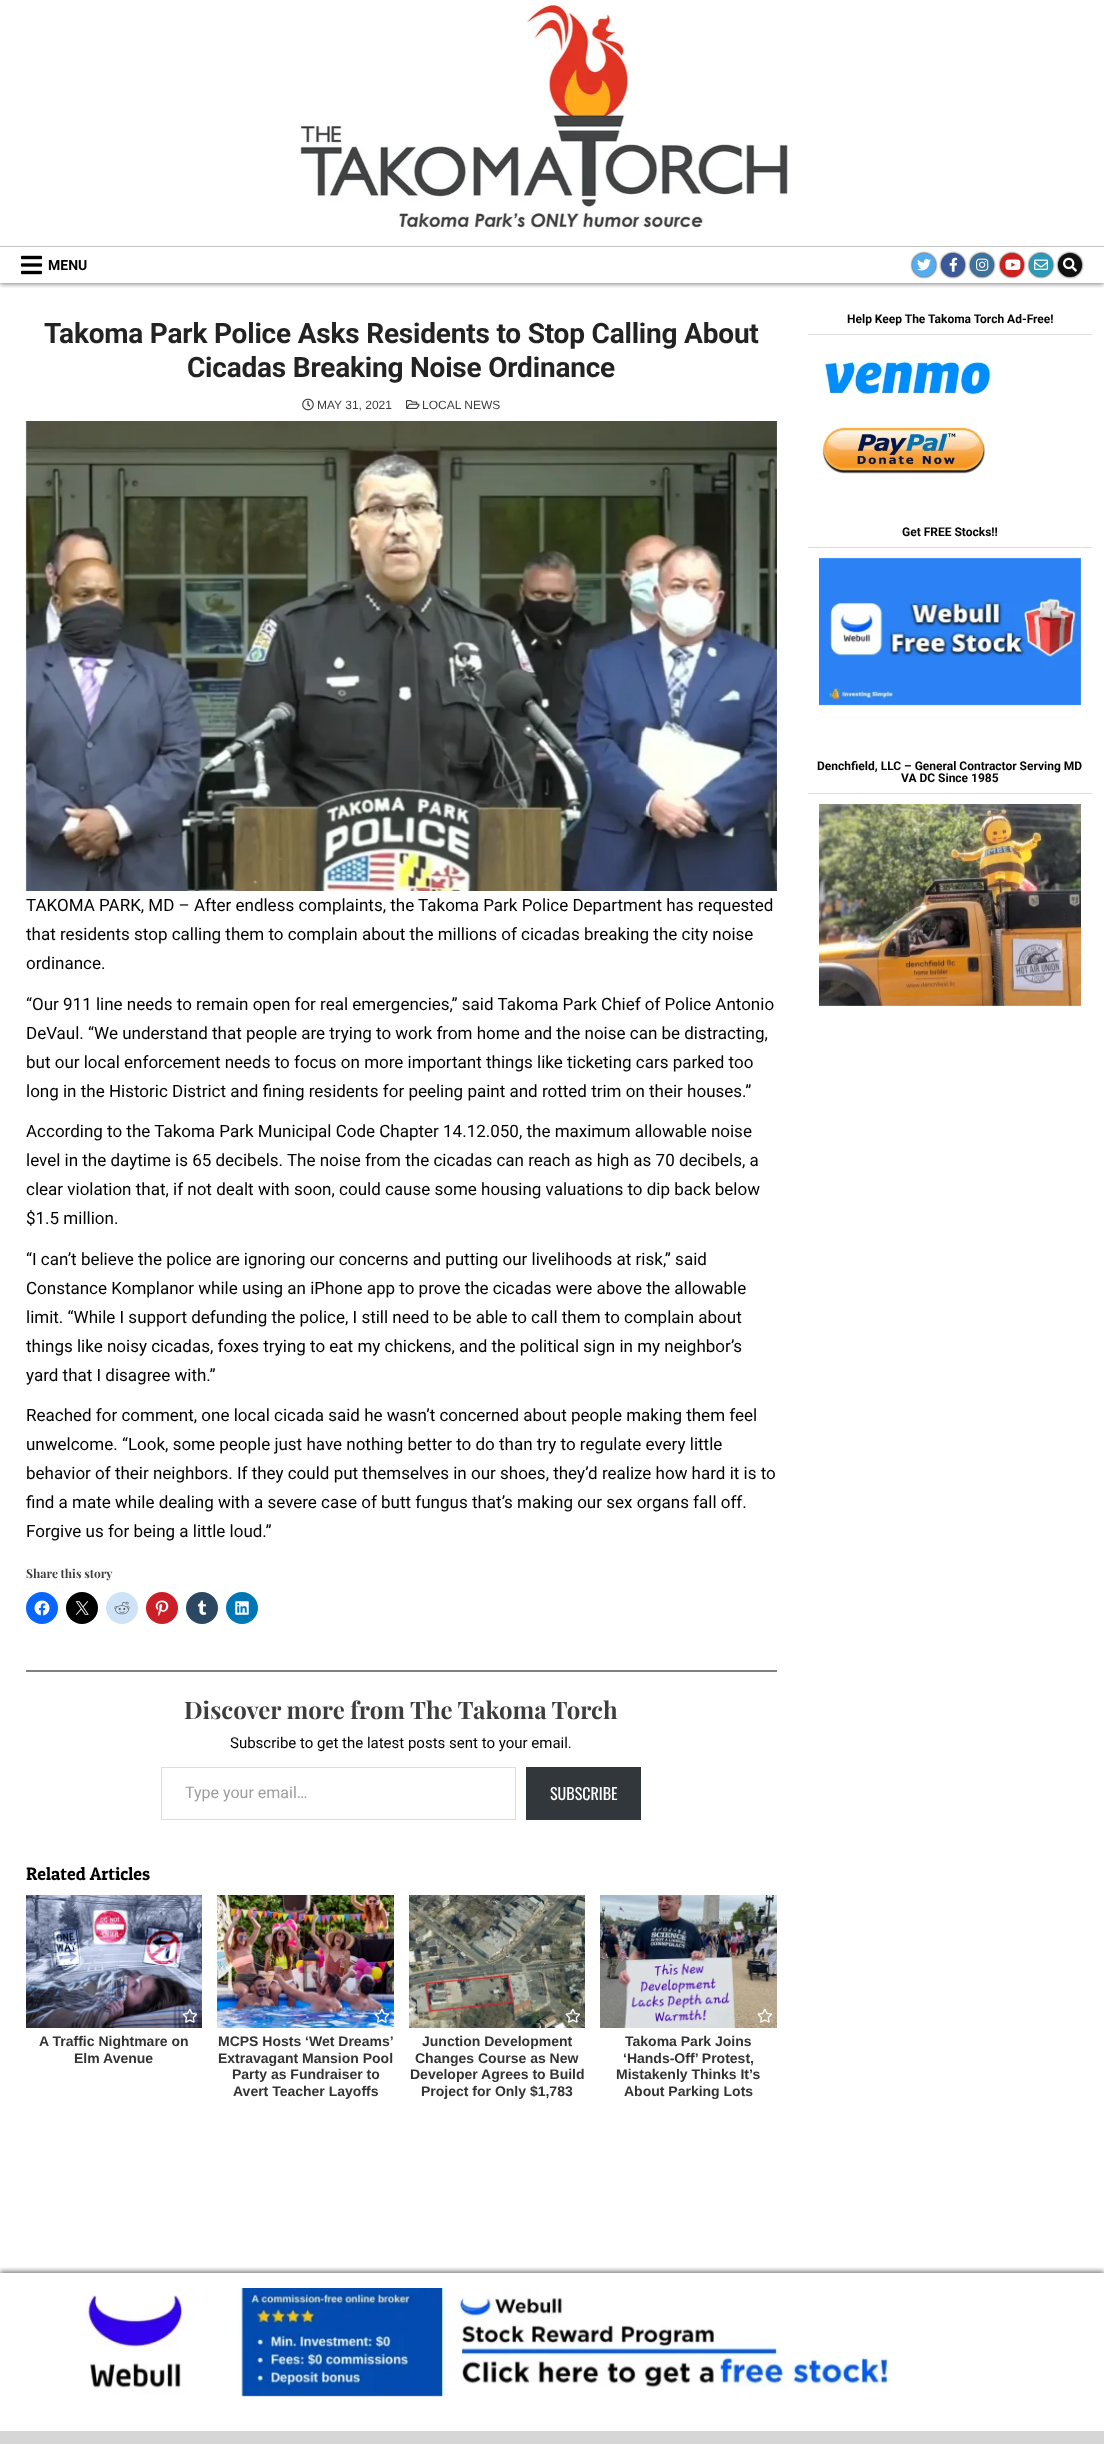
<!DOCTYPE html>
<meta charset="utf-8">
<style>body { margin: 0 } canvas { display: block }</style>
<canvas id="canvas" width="1104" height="2444"></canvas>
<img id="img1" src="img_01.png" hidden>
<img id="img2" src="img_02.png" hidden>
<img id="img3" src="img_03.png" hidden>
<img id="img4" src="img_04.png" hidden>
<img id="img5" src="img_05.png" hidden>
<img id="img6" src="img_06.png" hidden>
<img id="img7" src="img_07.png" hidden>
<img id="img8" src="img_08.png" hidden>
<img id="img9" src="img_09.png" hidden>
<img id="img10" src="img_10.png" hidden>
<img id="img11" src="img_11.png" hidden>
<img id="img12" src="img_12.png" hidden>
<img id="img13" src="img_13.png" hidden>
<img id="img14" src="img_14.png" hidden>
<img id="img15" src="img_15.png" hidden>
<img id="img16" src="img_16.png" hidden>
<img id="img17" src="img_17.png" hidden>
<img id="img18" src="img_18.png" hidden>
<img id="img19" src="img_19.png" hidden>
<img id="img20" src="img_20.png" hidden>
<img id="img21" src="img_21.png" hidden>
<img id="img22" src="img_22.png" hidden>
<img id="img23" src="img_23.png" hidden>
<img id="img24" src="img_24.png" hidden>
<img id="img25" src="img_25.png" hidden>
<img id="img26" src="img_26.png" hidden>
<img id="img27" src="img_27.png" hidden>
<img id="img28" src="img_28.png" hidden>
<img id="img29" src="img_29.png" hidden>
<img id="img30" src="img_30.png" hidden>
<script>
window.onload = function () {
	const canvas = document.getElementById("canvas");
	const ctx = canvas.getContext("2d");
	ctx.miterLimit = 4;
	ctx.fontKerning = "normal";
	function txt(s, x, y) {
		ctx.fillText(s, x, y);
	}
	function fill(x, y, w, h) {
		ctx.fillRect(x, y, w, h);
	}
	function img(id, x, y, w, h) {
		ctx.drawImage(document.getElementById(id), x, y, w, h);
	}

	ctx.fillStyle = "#FFFFFF";
	fill(0, 0, 1104, 2444);
	ctx.save();
	ctx.beginPath();
	ctx.rect(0, 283, 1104, 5);
	ctx.clip();
	ctx.fillStyle = "rgba(0, 0, 0, 0.5)";
	ctx.filter = "blur(2.5px)";
	ctx.beginPath();
	ctx.rect(0, 247, 1104, 37);
	ctx.fill();
	ctx.filter = "none";
	ctx.restore();
	fill(0, 242, 1104, 4);
	img("img1", 299, 4, 489, 225);
	ctx.fillStyle = "#C4C4C4";
	fill(0, 246, 1104, 1);
	img("img2", 21, 255, 21, 20);
	ctx.fillStyle = "#000000";
	ctx.filter = "blur(1px)";
	ctx.beginPath();
	ctx.roundRect(912, 253, 24, 24, 12);
	ctx.fill();
	ctx.filter = "none";
	ctx.fillStyle = "#55ACEE";
	ctx.beginPath();
	ctx.arc(924, 265, 12, 0, Math.PI * 2);
	ctx.fill();
	img("img3", 917, 259, 14, 12);
	ctx.fillStyle = "#000000";
	ctx.filter = "blur(1px)";
	ctx.beginPath();
	ctx.roundRect(941, 253, 24, 24, 12);
	ctx.fill();
	ctx.filter = "none";
	ctx.fillStyle = "#3B5998";
	ctx.beginPath();
	ctx.arc(953, 265, 12, 0, Math.PI * 2);
	ctx.fill();
	img("img4", 949, 257, 9, 15);
	ctx.fillStyle = "#000000";
	ctx.filter = "blur(1px)";
	ctx.beginPath();
	ctx.roundRect(970, 253, 24, 24, 12);
	ctx.fill();
	ctx.filter = "none";
	ctx.fillStyle = "#3F729B";
	ctx.beginPath();
	ctx.arc(982, 265, 12, 0, Math.PI * 2);
	ctx.fill();
	img("img5", 976, 258, 13, 13);
	ctx.fillStyle = "#000000";
	ctx.filter = "blur(1px)";
	ctx.beginPath();
	ctx.roundRect(1000, 253, 24, 24, 12);
	ctx.fill();
	ctx.filter = "none";
	ctx.fillStyle = "#CD201F";
	ctx.beginPath();
	ctx.arc(1012, 265, 12, 0, Math.PI * 2);
	ctx.fill();
	img("img6", 1005, 259, 16, 11);
	ctx.fillStyle = "#000000";
	ctx.filter = "blur(1px)";
	ctx.beginPath();
	ctx.roundRect(1029, 253, 24, 24, 12);
	ctx.fill();
	ctx.filter = "none";
	ctx.fillStyle = "#2C9AB7";
	ctx.beginPath();
	ctx.arc(1041, 265, 12, 0, Math.PI * 2);
	ctx.fill();
	img("img7", 1034, 259, 14, 11);
	ctx.fillStyle = "#000000";
	ctx.filter = "blur(1px)";
	ctx.beginPath();
	ctx.roundRect(1058, 253, 24, 24, 12);
	ctx.fill();
	ctx.filter = "none";
	ctx.fillStyle = "#111111";
	ctx.beginPath();
	ctx.arc(1070, 265, 12, 0, Math.PI * 2);
	ctx.fill();
	img("img8", 1063, 257, 14, 15);
	img("img9", 302, 398, 12, 13);
	img("img10", 406, 400, 14, 9);
	img("img11", 25, 421, 752, 470);
	ctx.fillStyle = "#0866FF";
	ctx.beginPath();
	ctx.arc(42, 1608, 16, 0, Math.PI * 2);
	ctx.fill();
	img("img12", 34, 1600, 16, 16);
	ctx.fillStyle = "#000000";
	ctx.beginPath();
	ctx.arc(82, 1608, 16, 0, Math.PI * 2);
	ctx.fill();
	img("img13", 75, 1601, 14, 14);
	ctx.fillStyle = "#CEE3F8";
	ctx.beginPath();
	ctx.arc(122, 1608, 16, 0, Math.PI * 2);
	ctx.fill();
	img("img14", 114, 1601, 16, 14);
	ctx.fillStyle = "#CA1F27";
	ctx.beginPath();
	ctx.arc(162, 1608, 16, 0, Math.PI * 2);
	ctx.fill();
	img("img15", 155, 1600, 14, 16);
	ctx.fillStyle = "#2C4762";
	ctx.beginPath();
	ctx.arc(202, 1608, 16, 0, Math.PI * 2);
	ctx.fill();
	img("img16", 197, 1600, 10, 15);
	ctx.fillStyle = "#0077B5";
	ctx.beginPath();
	ctx.arc(242, 1608, 16, 0, Math.PI * 2);
	ctx.fill();
	img("img17", 235, 1601, 14, 14);
	ctx.fillStyle = "#808080";
	fill(26, 1670, 751, 2);
	ctx.strokeStyle = "#DDDDDD";
	ctx.strokeRect(161.5, 1767.5, 354, 52);
	ctx.fillStyle = "#32373C";
	fill(526, 1767, 115, 53);
	img("img18", 26, 1895, 176, 133);
	img("img19", 182, 2008, 16, 15);
	img("img20", 217, 1895, 177, 133);
	img("img21", 374, 2008, 16, 15);
	img("img22", 409, 1895, 176, 133);
	img("img23", 565, 2008, 16, 15);
	img("img24", 600, 1895, 177, 133);
	img("img25", 757, 2008, 16, 15);
	ctx.fillStyle = "#DDDDDD";
	fill(808, 334, 284, 1);
	img("img26", 823, 359, 171, 38);
	img("img27", 822, 427, 163, 47);
	fill(808, 547, 284, 1);
	img("img28", 819, 557, 262, 149);
	fill(808, 793, 284, 1);
	img("img29", 819, 804, 262, 202);
	ctx.save();
	ctx.beginPath();
	ctx.rect(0, 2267, 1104, 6);
	ctx.clip();
	ctx.fillStyle = "rgba(0, 0, 0, 0.5)";
	ctx.filter = "blur(2.5px)";
	ctx.beginPath();
	ctx.rect(0, 2271, 1104, 156);
	ctx.fill();
	ctx.filter = "none";
	ctx.restore();
	img("img30", 86, 2288, 803, 109);
	ctx.fillStyle = "#D6D6D6";
	fill(0, 2431, 1104, 13);
	ctx.fillStyle = "#FFFFFF";
	fill(0, 2429, 1104, 2);
	ctx.font = "bold 14px Roboto";
	ctx.fillStyle = "#000000";
	txt("MENU", 48, 270);
	ctx.letterSpacing = "-0.2px";
	ctx.font = "bold 28px Roboto";
	ctx.fillStyle = "#232323";
	txt("Takoma Park Police Asks Residents to Stop Calling About", 44, 343);
	txt("Cicadas Breaking Noise Ordinance", 187, 377);
	ctx.letterSpacing = "0px";
	ctx.font = "12px Liberation Sans";
	ctx.fillStyle = "#3D3D3D";
	txt("MAY 31, 2021", 317, 409);
	txt("LOCAL NEWS", 422, 409);
	ctx.font = "17px Roboto";
	ctx.fillStyle = "#000000";
	txt("TAKOMA PARK, MD – After endless complaints, the Takoma Park Police Department has requested", 26, 911);
	txt("that residents stop calling them to complain about the millions of cicadas breaking the city noise", 26, 940);
	txt("ordinance.", 26, 969);
	txt("“Our 911 line needs to remain open for real emergencies,” said Takoma Park Chief of Police Antonio", 26, 1010);
	txt("DeVaul. “We understand that people are trying to work from home and the noise can be distracting,", 26, 1039);
	txt("but our local enforcement needs to focus on more important things like ticketing cars parked too", 26, 1068);
	txt("long in the Historic District and fining residents for peeling paint and rotted trim on their houses.”", 26, 1097);
	txt("According to the Takoma Park Municipal Code Chapter 14.12.050, the maximum allowable noise", 26, 1137);
	txt("level in the daytime is 65 decibels. The noise from the cicadas can reach as high as 70 decibels, a", 26, 1166);
	txt("clear violation that, if not dealt with soon, could cause some housing valuations to dip back below", 26, 1195);
	txt("$1.5 million.", 26, 1224);
	txt("“I can’t believe the police are ignoring our concerns and putting our livelihoods at risk,” said", 26, 1265);
	txt("Constance Komplanor while using an iPhone app to prove the cicadas were above the allowable", 26, 1294);
	txt("limit. “While I support defunding the police, I still need to be able to call them to complain about", 26, 1323);
	txt("things like noisy cicadas, foxes trying to eat my chickens, and the political sign in my neighbor’s", 26, 1352);
	txt("yard that I disagree with.”", 26, 1381);
	txt("Reached for comment, one local cicada said he wasn’t concerned about people making them feel", 26, 1421);
	txt("unwelcome. “Look, some people just have nothing better to do than try to regulate every little", 26, 1450);
	txt("behavior of their neighbors. If they could put themselves in our shoes, they’d realize how hard it is to", 26, 1479);
	txt("find a mate while dealing with a severe case of butt fungus that’s making our sex organs fall off.", 26, 1508);
	txt("Forgive us for being a little loud.”", 26, 1537);
	ctx.font = "bold 12px Playfair Display";
	ctx.fillStyle = "#3D3D3D";
	txt("Share this story", 26, 1578);
	ctx.font = "bold 24px Playfair Display";
	txt("Discover more from The Takoma Torch", 184, 1719);
	ctx.font = "15px Roboto";
	ctx.fillStyle = "#000000";
	txt("Subscribe to get the latest posts sent to your email.", 230, 1748);
	ctx.font = "16px Roboto";
	ctx.fillStyle = "#9E9E9E";
	txt("Type your email…", 185, 1798);
	ctx.font = "16px Oswald";
	ctx.fillStyle = "#FFFFFF";
	txt("SUBSCRIBE", 550, 1800);
	ctx.font = "18px Patua One";
	ctx.fillStyle = "#000000";
	txt("Related Articles", 26, 1880);
	ctx.font = "bold 14px Liberation Sans";
	ctx.fillStyle = "#333333";
	txt("A Traffic Nightmare on", 39, 2046);
	txt("Elm Avenue", 74, 2063);
	txt("MCPS Hosts ‘Wet Dreams’", 218, 2046);
	txt("Extravagant Mansion Pool", 218, 2063);
	txt("Party as Fundraiser to", 232, 2079);
	txt("Avert Teacher Layoffs", 233, 2096);
	txt("Junction Development", 422, 2046);
	txt("Changes Course as New", 415, 2063);
	txt("Developer Agrees to Build", 410, 2079);
	txt("Project for Only $1,783", 421, 2096);
	txt("Takoma Park Joins", 625, 2046);
	txt("‘Hands-Off’ Protest,", 623, 2063);
	txt("Mistakenly Thinks It’s", 616, 2079);
	txt("About Parking Lots", 624, 2096);
	ctx.font = "bold 12px Roboto";
	ctx.fillStyle = "#000000";
	txt("Help Keep The Takoma Torch Ad-Free!", 847, 323);
	txt("Get FREE Stocks!!", 902, 536);
	txt("Denchfield, LLC – General Contractor Serving MD", 817, 770);
	txt("VA DC Since 1985", 901, 782);
};
</script>
